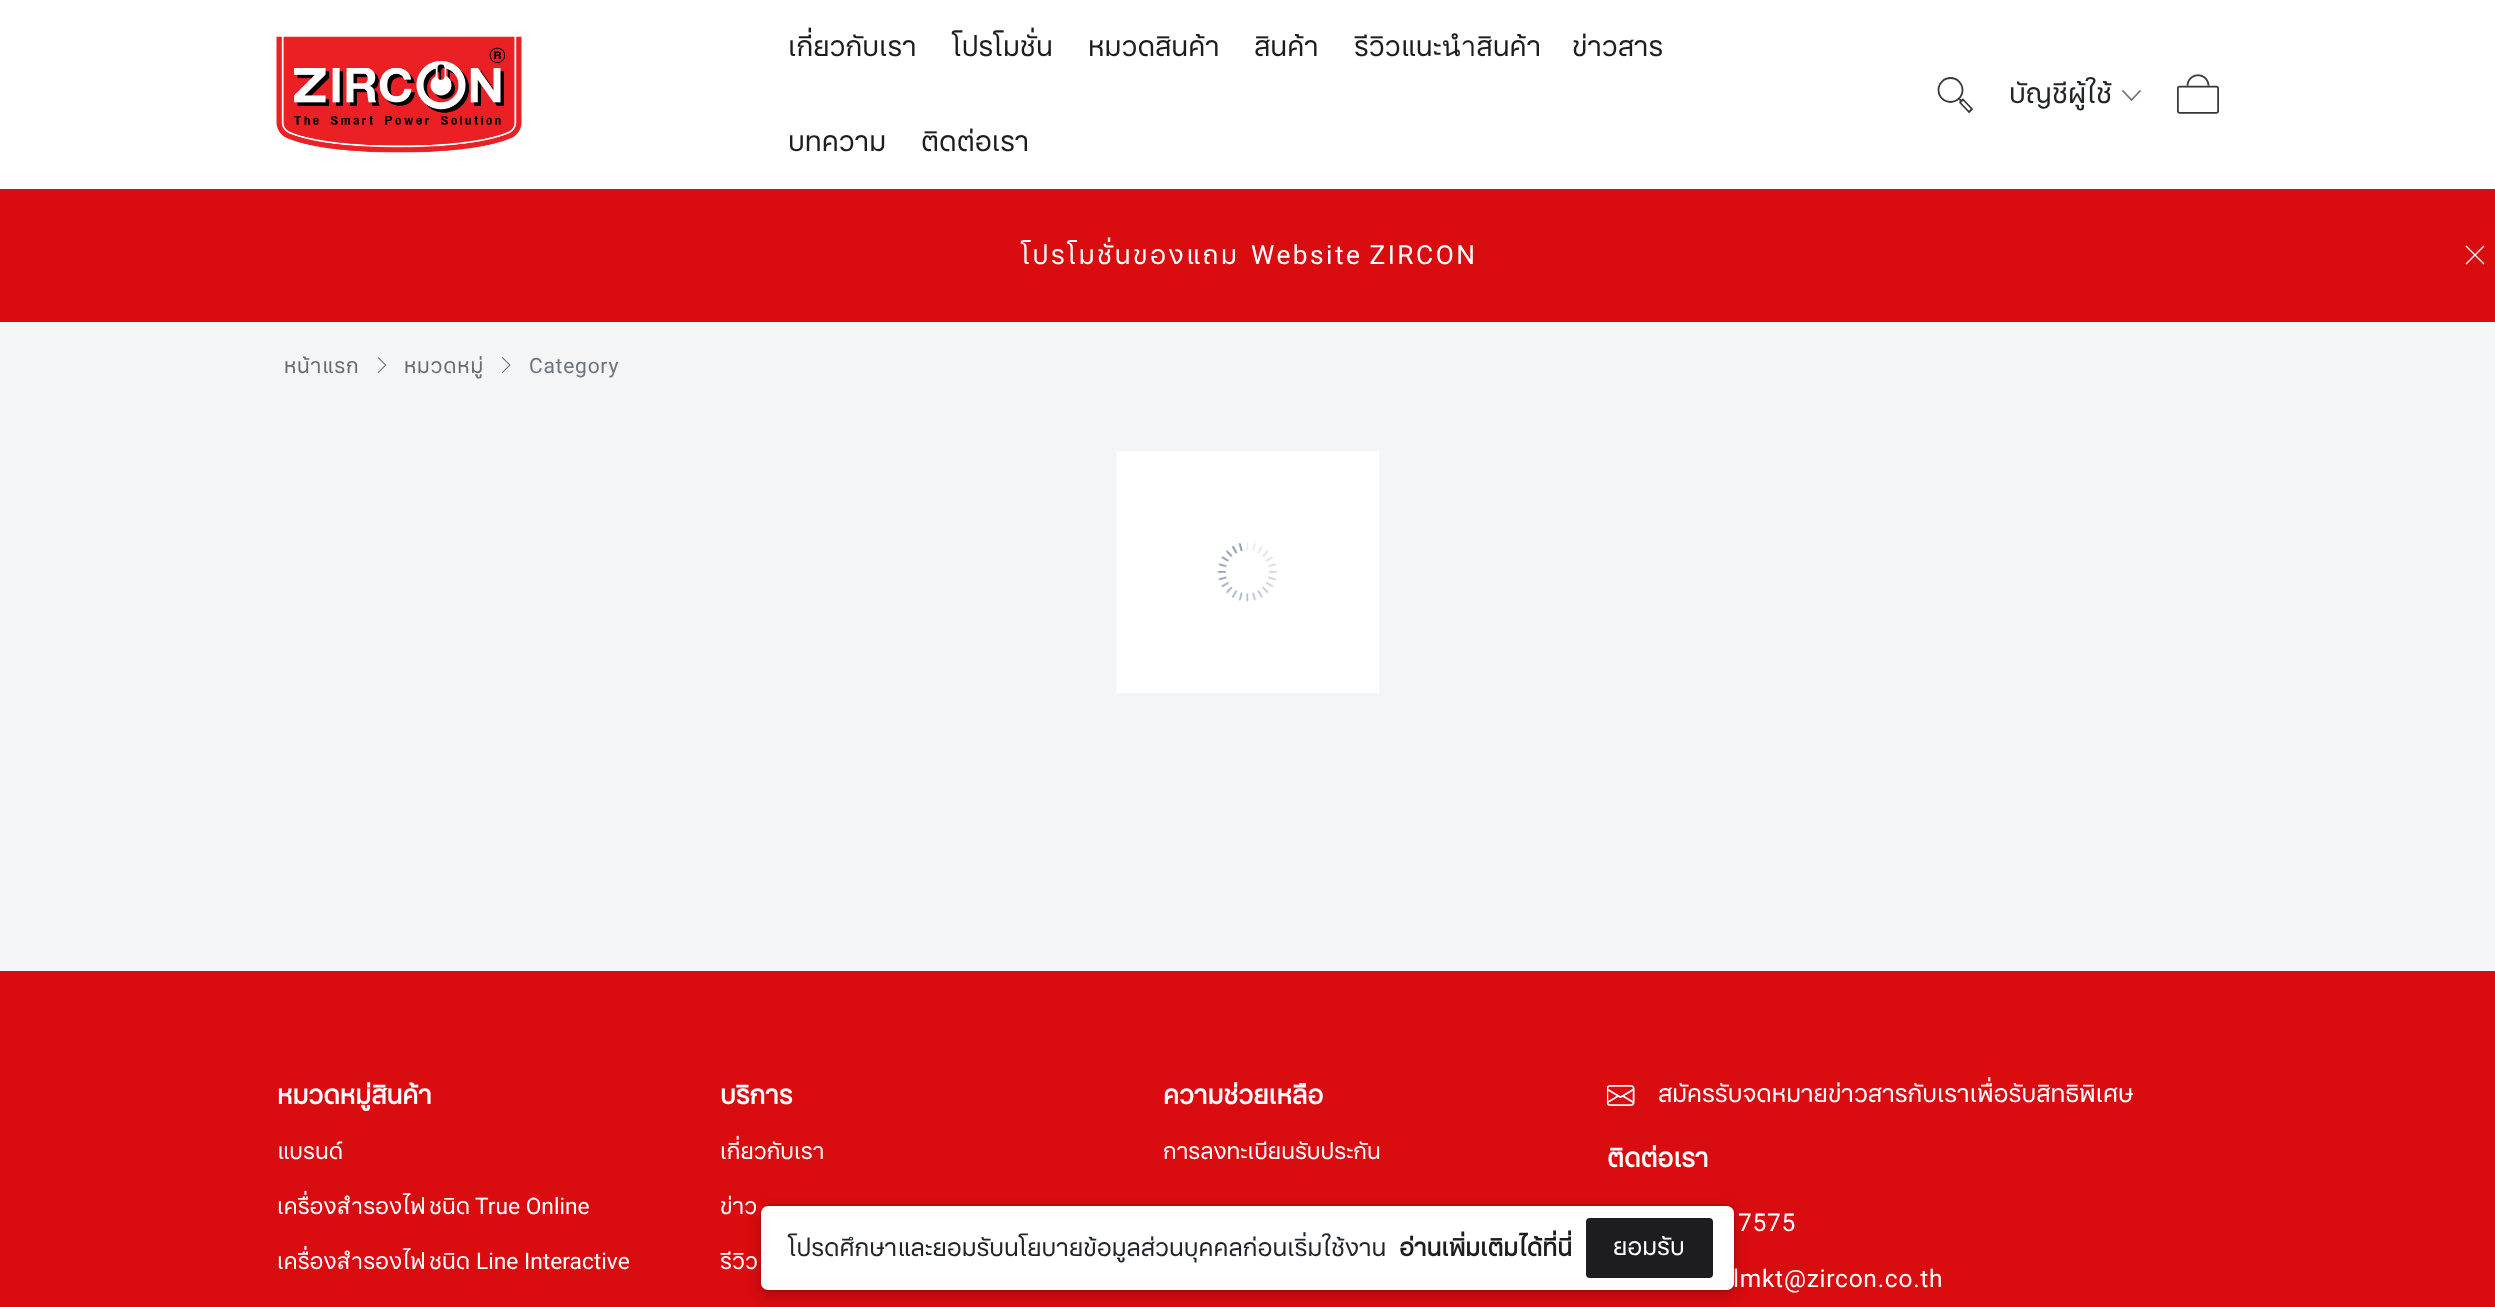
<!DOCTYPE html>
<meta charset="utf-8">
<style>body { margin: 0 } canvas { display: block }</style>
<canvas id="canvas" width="2495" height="1307"></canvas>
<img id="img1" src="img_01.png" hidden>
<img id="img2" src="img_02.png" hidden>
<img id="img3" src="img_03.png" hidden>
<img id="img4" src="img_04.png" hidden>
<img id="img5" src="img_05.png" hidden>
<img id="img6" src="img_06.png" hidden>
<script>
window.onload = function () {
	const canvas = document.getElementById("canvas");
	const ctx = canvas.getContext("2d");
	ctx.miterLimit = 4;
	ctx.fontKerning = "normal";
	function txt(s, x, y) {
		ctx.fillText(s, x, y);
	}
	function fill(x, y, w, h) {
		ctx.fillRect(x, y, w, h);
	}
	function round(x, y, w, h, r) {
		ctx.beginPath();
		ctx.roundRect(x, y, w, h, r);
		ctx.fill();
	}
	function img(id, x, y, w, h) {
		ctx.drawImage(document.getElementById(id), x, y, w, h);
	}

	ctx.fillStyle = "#FFFFFF";
	fill(0, 0, 2495, 1307);
	ctx.fillStyle = "#F3F5F7";
	fill(0, 322, 2495, 649);
	img("img1", 377, 357, 10, 16);
	img("img2", 501, 357, 10, 16);
	img("img3", 1116, 451, 263, 242);
	img("img4", 276, 36, 246, 117);
	ctx.beginPath();
	ctx.moveTo(1960, 102.5);
	ctx.lineTo(1963, 99.5);
	ctx.lineTo(1972, 109);
	ctx.lineTo(1969, 112);
	ctx.closePath();
	ctx.moveTo(1961, 100.5);
	ctx.lineTo(1959, 99);
	ctx.strokeStyle = "#393939";
	ctx.lineWidth = 1.8;
	ctx.lineCap = "round";
	ctx.lineJoin = "round";
	ctx.stroke();
	ctx.beginPath();
	ctx.arc(1950.5, 90, 12, 0, Math.PI * 2);
	ctx.stroke();
	ctx.beginPath();
	ctx.moveTo(2131.5, 100);
	ctx.lineTo(2123, 91);
	ctx.moveTo(2131.5, 100);
	ctx.lineTo(2140, 91);
	ctx.strokeStyle = "#737373";
	ctx.lineJoin = "miter";
	ctx.stroke();
	img("img5", 2177, 74, 42, 40);
	ctx.fillStyle = "#D90C10";
	fill(0, 189, 2495, 133);
	ctx.beginPath();
	ctx.moveTo(2466, 246);
	ctx.lineTo(2484, 264);
	ctx.moveTo(2484, 246);
	ctx.lineTo(2466, 264);
	ctx.strokeStyle = "#FFFFFF";
	ctx.lineWidth = 1.3;
	ctx.lineCap = "butt";
	ctx.stroke();
	fill(0, 971, 2495, 336);
	img("img6", 1607, 1085, 28, 21);
	ctx.letterSpacing = "0.75px";
	ctx.font = "21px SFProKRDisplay";
	ctx.fillStyle = "#6B6B6B";
	txt("หน้าแรก", 284, 373);
	txt("หมวดหมู่", 404, 373);
	ctx.font = "21px Roboto";
	ctx.fillStyle = "#6C757D";
	txt("Category", 529, 373);
	ctx.letterSpacing = "0px";
	ctx.font = "28px SFProKRDisplay";
	ctx.fillStyle = "#1D1D1F";
	txt("เกี่ยวกับเรา", 788, 56);
	txt("โปรโมชั่น", 952, 56);
	txt("หมวดสินค้า", 1088, 56);
	txt("สินค้า", 1254, 56);
	txt("รีวิวแนะนำสินค้า", 1354, 56);
	txt("ข่าวสาร", 1572, 56);
	txt("บทความ", 788, 151);
	txt("ติดต่อเรา", 921, 151);
	ctx.fillStyle = "#212529";
	txt("บัญชีผู้ใช้", 2009, 103);
	ctx.letterSpacing = "2.5px";
	ctx.font = "26.25px SFProKRDisplay";
	ctx.fillStyle = "#FFFFFF";
	txt("โปรโมชั่นของแถม", 1021, 264);
	ctx.wordSpacing = "-2px";
	ctx.font = "26.25px Roboto";
	txt("Website ZIRCON", 1251, 264);
	ctx.letterSpacing = "0px";
	ctx.wordSpacing = "0px";
	ctx.font = "bold 26.25px SFProKRDisplay";
	txt("หมวดหมู่สินค้า", 277, 1104);
	ctx.font = "22.75px SFProKRDisplay";
	txt("แบรนด์", 277, 1159);
	txt("เครื่องสำรองไฟ", 277, 1214);
	txt("ชนิด", 429, 1214);
	ctx.font = "22.75px Roboto";
	txt("True Online", 475, 1214);
	ctx.font = "22.75px SFProKRDisplay";
	txt("เครื่องสำรองไฟ", 277, 1269);
	txt("ชนิด", 429, 1269);
	ctx.font = "22.75px Roboto";
	txt("Line Interactive", 476, 1269);
	ctx.font = "bold 26.25px SFProKRDisplay";
	txt("บริการ", 720, 1104);
	ctx.font = "22.75px SFProKRDisplay";
	txt("เกี่ยวกับเรา", 720, 1159);
	txt("ข่าว", 720, 1214);
	txt("รีวิว", 720, 1269);
	ctx.font = "bold 26.25px SFProKRDisplay";
	txt("ความช่วยเหลือ", 1163, 1104);
	ctx.font = "22.75px SFProKRDisplay";
	txt("การลงทะเบียนรับประกัน", 1163, 1159);
	ctx.font = "24.5px SFProKRDisplay";
	txt("สมัครรับจดหมายข่าวสารกับเราเพื่อรับสิทธิพิเศษ", 1658, 1102);
	ctx.font = "bold 26.25px SFProKRDisplay";
	txt("ติดต่อเรา", 1607, 1167);
	ctx.letterSpacing = "0.75px";
	ctx.font = "24.5px Roboto";
	txt("7575", 1738, 1231);
	txt("lmkt@zircon.co.th", 1733, 1287);
	ctx.beginPath();
	ctx.roundRect(761, 1205, 974, 86, 8);
	ctx.strokeStyle = "rgba(0, 0, 0, 0.08)";
	ctx.lineWidth = 2;
	ctx.stroke();
	ctx.fillStyle = "rgba(0, 0, 0, 0.2)";
	ctx.filter = "blur(7px)";
	ctx.beginPath();
	ctx.roundRect(761, 1211, 973, 84, 7);
	ctx.fill();
	ctx.filter = "none";
	ctx.fillStyle = "#FFFFFF";
	round(761, 1206, 973, 84, 7);
	ctx.fillStyle = "#1D1D1F";
	round(1586, 1218, 127, 60, 4);
	ctx.letterSpacing = "0px";
	ctx.font = "24.5px SFProKRDisplay";
	ctx.fillStyle = "#FFFFFF";
	txt("ยอมรับ", 1613, 1255);
	ctx.font = "bold 24.5px SFProKRDisplay";
	ctx.fillStyle = "#1D1D1F";
	txt("อ่านเพิ่มเติมได้ที่นี่", 1399, 1256);
	ctx.font = "24.5px SFProKRDisplay";
	ctx.fillStyle = "#212529";
	txt("โปรดศึกษาและยอมรับนโยบายข้อมูลส่วนบุคคลก่อนเริ่มใช้งาน", 788, 1256);
};
</script>
